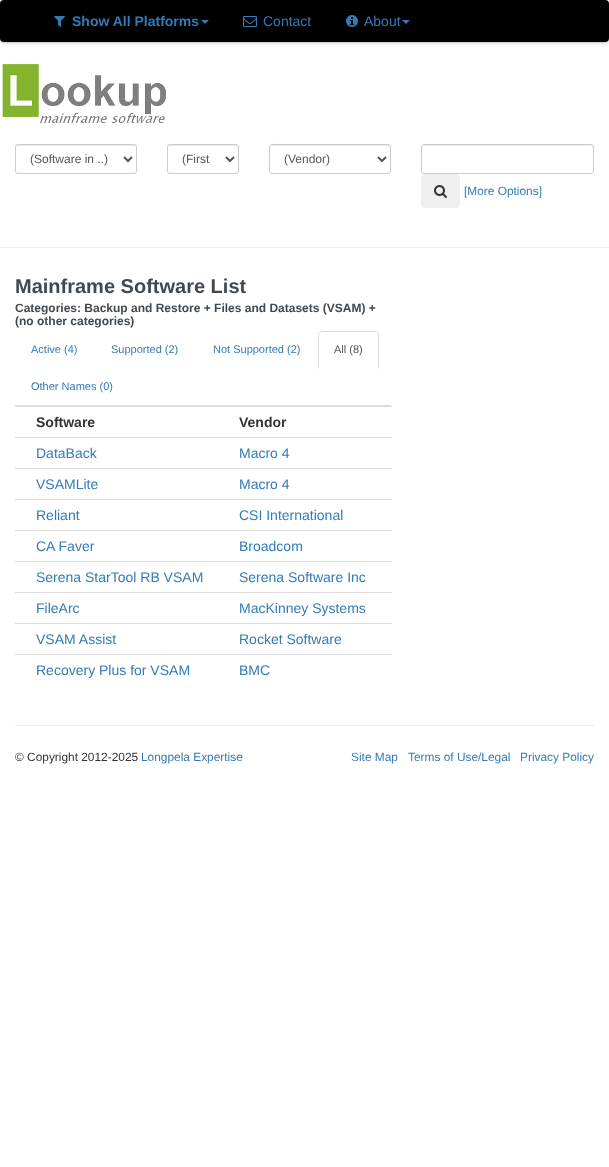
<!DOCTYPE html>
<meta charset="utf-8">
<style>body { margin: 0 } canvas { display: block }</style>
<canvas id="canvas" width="609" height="1167"></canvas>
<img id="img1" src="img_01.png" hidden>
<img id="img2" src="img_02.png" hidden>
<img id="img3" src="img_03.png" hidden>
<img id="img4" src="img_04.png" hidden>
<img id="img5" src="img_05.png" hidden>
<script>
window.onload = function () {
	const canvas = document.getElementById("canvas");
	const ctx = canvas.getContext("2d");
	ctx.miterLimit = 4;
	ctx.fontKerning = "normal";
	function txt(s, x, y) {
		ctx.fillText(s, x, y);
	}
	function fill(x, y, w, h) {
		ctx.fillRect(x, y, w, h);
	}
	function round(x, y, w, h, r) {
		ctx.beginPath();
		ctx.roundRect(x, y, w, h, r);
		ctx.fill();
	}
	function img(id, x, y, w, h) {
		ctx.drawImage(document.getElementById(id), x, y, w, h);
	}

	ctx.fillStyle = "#FFFFFF";
	fill(0, 0, 609, 1167);
	ctx.fillStyle = "rgba(0, 0, 0, 0.25)";
	ctx.filter = "blur(1.5px)";
	ctx.beginPath();
	ctx.roundRect(0, 1, 609, 42, 4);
	ctx.fill();
	ctx.filter = "none";
	ctx.fillStyle = "#000000";
	round(0, 0, 609, 42, 4);
	img("img1", 54, 16, 11, 11);
	ctx.fillStyle = "#337AB7";
	ctx.beginPath();
	ctx.moveTo(201, 20);
	ctx.lineTo(209, 20);
	ctx.lineTo(205, 24);
	ctx.closePath();
	ctx.fill();
	img("img2", 243, 16, 14, 11);
	img("img3", 346, 15, 12, 12);
	ctx.beginPath();
	ctx.moveTo(402, 20);
	ctx.lineTo(410, 20);
	ctx.lineTo(406, 24);
	ctx.closePath();
	ctx.fill();
	img("img4", 2, 64, 164, 59);
	ctx.fillStyle = "#ECECEC";
	ctx.beginPath();
	ctx.moveTo(18, 146);
	ctx.lineTo(134, 146);
	ctx.bezierCurveTo(135, 146, 136, 147, 136, 148);
	ctx.bezierCurveTo(136, 141, 121, 145, 115, 145);
	ctx.lineTo(17, 145);
	ctx.bezierCurveTo(16, 146, 16, 147, 16, 148);
	ctx.bezierCurveTo(16, 147, 17, 146, 18, 146);
	ctx.closePath();
	ctx.fill();
	ctx.beginPath();
	ctx.roundRect(15.5, 144.5, 121, 29, 2.5);
	ctx.strokeStyle = "#CCCCCC";
	ctx.stroke();
	ctx.beginPath();
	ctx.moveTo(124, 157);
	ctx.lineTo(128, 161);
	ctx.lineTo(132, 157);
	ctx.strokeStyle = "#555555";
	ctx.lineWidth = 2;
	ctx.stroke();
	ctx.beginPath();
	ctx.moveTo(170, 146);
	ctx.lineTo(236, 146);
	ctx.bezierCurveTo(237, 146, 238, 147, 238, 148);
	ctx.bezierCurveTo(238, 142, 229, 145, 225, 145);
	ctx.lineTo(181, 145);
	ctx.bezierCurveTo(177, 145, 168, 142, 168, 148);
	ctx.bezierCurveTo(168, 147, 169, 146, 170, 146);
	ctx.closePath();
	ctx.fill();
	ctx.beginPath();
	ctx.roundRect(167.5, 144.5, 71, 29, 2.5);
	ctx.strokeStyle = "#CCCCCC";
	ctx.lineWidth = 1;
	ctx.stroke();
	ctx.beginPath();
	ctx.moveTo(226, 157);
	ctx.lineTo(230, 161);
	ctx.lineTo(234, 157);
	ctx.strokeStyle = "#555555";
	ctx.lineWidth = 2;
	ctx.stroke();
	ctx.beginPath();
	ctx.moveTo(272, 146);
	ctx.lineTo(388, 146);
	ctx.bezierCurveTo(389, 146, 390, 147, 390, 148);
	ctx.bezierCurveTo(390, 147, 390, 146, 389, 145);
	ctx.lineTo(291, 145);
	ctx.bezierCurveTo(285, 145, 270, 141, 270, 148);
	ctx.bezierCurveTo(270, 147, 271, 146, 272, 146);
	ctx.closePath();
	ctx.fill();
	ctx.beginPath();
	ctx.roundRect(269.5, 144.5, 121, 29, 2.5);
	ctx.strokeStyle = "#CCCCCC";
	ctx.lineWidth = 1;
	ctx.stroke();
	ctx.beginPath();
	ctx.moveTo(378, 157);
	ctx.lineTo(382, 161);
	ctx.lineTo(386, 157);
	ctx.strokeStyle = "#555555";
	ctx.lineWidth = 2;
	ctx.stroke();
	ctx.beginPath();
	ctx.moveTo(424, 146);
	ctx.lineTo(591, 146);
	ctx.bezierCurveTo(592, 146, 593, 147, 593, 148);
	ctx.bezierCurveTo(593, 147, 593, 145, 591, 145);
	ctx.lineTo(423, 145);
	ctx.bezierCurveTo(422, 146, 422, 147, 422, 148);
	ctx.bezierCurveTo(422, 147, 423, 146, 424, 146);
	ctx.closePath();
	ctx.fill();
	ctx.beginPath();
	ctx.roundRect(421.5, 144.5, 172, 29, 2.5);
	ctx.strokeStyle = "#CCCCCC";
	ctx.lineWidth = 1;
	ctx.stroke();
	ctx.fillStyle = "#EFEFEF";
	round(421, 174, 39, 34, 4);
	img("img5", 434, 185, 13, 13);
	ctx.fillStyle = "#EEEEEE";
	fill(0, 247, 609, 1);
	ctx.fillStyle = "#DDDDDD";
	fill(15, 405, 376, 1);
	ctx.beginPath();
	ctx.moveTo(322, 331);
	ctx.lineTo(319, 332);
	ctx.lineTo(320, 333);
	ctx.lineTo(322, 332);
	ctx.lineTo(376, 332);
	ctx.lineTo(377, 333);
	ctx.lineTo(378, 332);
	ctx.lineTo(375, 331);
	ctx.closePath();
	ctx.fill();
	ctx.beginPath();
	ctx.moveTo(379, 369);
	ctx.lineTo(379, 335);
	ctx.bezierCurveTo(379, 334, 378.5, 333, 378, 332);
	ctx.lineTo(377, 333);
	ctx.bezierCurveTo(378, 333, 378, 334, 378, 335);
	ctx.lineTo(378, 368);
	ctx.closePath();
	ctx.moveTo(318, 369);
	ctx.lineTo(319, 368);
	ctx.lineTo(319, 335);
	ctx.bezierCurveTo(319, 334, 319, 333, 320, 333);
	ctx.lineTo(319, 332);
	ctx.bezierCurveTo(318.5, 333, 318, 334, 318, 335);
	ctx.closePath();
	ctx.fill();
	fill(15, 406, 377, 1);
	fill(15, 437, 377, 1);
	fill(15, 468, 377, 1);
	fill(15, 499, 377, 1);
	fill(15, 530, 377, 1);
	fill(15, 561, 377, 1);
	fill(15, 592, 377, 1);
	fill(15, 623, 377, 1);
	fill(15, 654, 377, 1);
	ctx.fillStyle = "#EEEEEE";
	fill(15, 725, 579, 1);
	ctx.font = "bold 14px Liberation Sans";
	ctx.fillStyle = "#337AB7";
	txt("Show All Platforms", 72, 26);
	ctx.font = "14px Liberation Sans";
	txt("Contact", 263, 26);
	txt("About", 364, 26);
	ctx.font = "12px Liberation Sans";
	ctx.fillStyle = "#555555";
	txt("(Software in ..)", 30, 163);
	txt("(First", 182, 163);
	txt("(Vendor)", 284, 163);
	ctx.font = "11.9px Liberation Sans";
	ctx.fillStyle = "#337AB7";
	txt("[More Options]", 464, 195);
	ctx.font = "bold 20px Liberation Sans";
	ctx.fillStyle = "#404952";
	txt("Mainframe Software List", 15, 293);
	ctx.font = "bold 12px Liberation Sans";
	txt("Categories: Backup and Restore + Files and Datasets (VSAM) +", 15, 312);
	txt("(no other categories)", 15, 325);
	ctx.font = "11px Liberation Sans";
	ctx.fillStyle = "#337AB7";
	txt("Active (4)", 31, 353);
	txt("Supported (2)", 111, 353);
	txt("Not Supported (2)", 213, 353);
	ctx.fillStyle = "#555555";
	txt("All (8)", 334, 353);
	ctx.fillStyle = "#337AB7";
	txt("Other Names (0)", 31, 390);
	ctx.font = "bold 14px Liberation Sans";
	ctx.fillStyle = "#333333";
	txt("Software", 36, 427);
	txt("Vendor", 239, 427);
	ctx.font = "14px Liberation Sans";
	ctx.fillStyle = "#337AB7";
	txt("DataBack", 36, 458);
	txt("Macro 4", 239, 458);
	txt("VSAMLite", 36, 489);
	txt("Macro 4", 239, 489);
	txt("Reliant", 36, 520);
	txt("CSI International", 239, 520);
	txt("CA Faver", 36, 551);
	txt("Broadcom", 239, 551);
	txt("Serena StarTool RB VSAM", 36, 582);
	txt("Serena Software Inc", 239, 582);
	txt("FileArc", 36, 613);
	txt("MacKinney Systems", 239, 613);
	txt("VSAM Assist", 36, 644);
	txt("Rocket Software", 239, 644);
	txt("Recovery Plus for VSAM", 36, 675);
	txt("BMC", 239, 675);
	ctx.font = "11.9px Liberation Sans";
	ctx.fillStyle = "#333333";
	txt("© Copyright 2012-2025", 15, 761);
	ctx.fillStyle = "#337AB7";
	txt("Longpela Expertise", 141, 761);
	txt("Site Map", 351, 761);
	txt("Terms of Use/Legal", 408, 761);
	txt("Privacy Policy", 520, 761);
};
</script>
